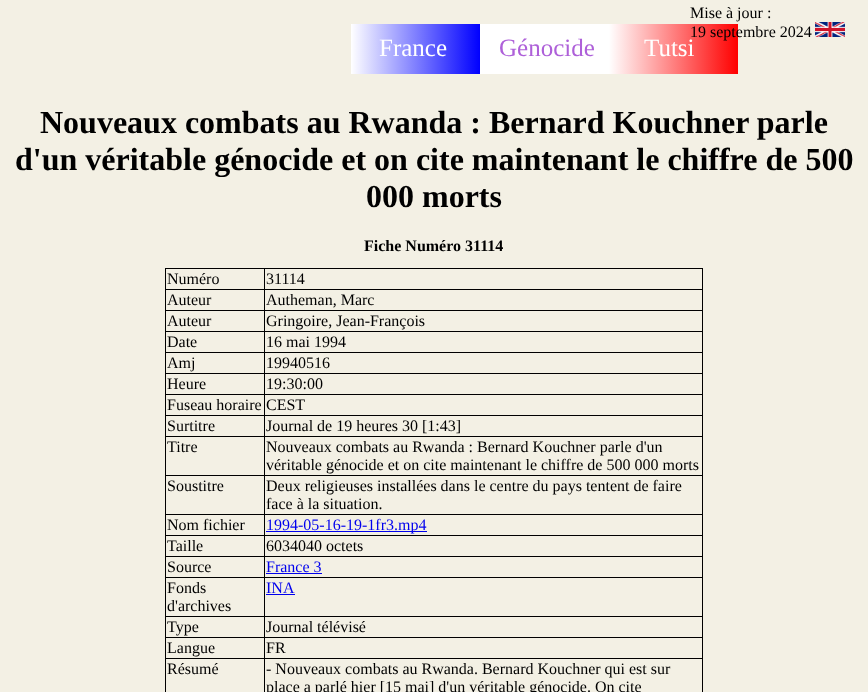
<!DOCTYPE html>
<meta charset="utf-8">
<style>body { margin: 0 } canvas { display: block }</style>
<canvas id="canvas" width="868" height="692"></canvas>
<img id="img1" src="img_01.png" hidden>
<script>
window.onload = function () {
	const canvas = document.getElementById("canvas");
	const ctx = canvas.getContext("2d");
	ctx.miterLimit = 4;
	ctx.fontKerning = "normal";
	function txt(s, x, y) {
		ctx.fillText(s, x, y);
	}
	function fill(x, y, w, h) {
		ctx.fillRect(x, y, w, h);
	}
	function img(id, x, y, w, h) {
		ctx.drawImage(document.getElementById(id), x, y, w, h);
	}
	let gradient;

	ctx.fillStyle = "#F3F0E4";
	fill(0, 0, 868, 692);
	img("img1", 815, 22, 30, 15);
	gradient = ctx.createLinearGradient(351, 24, 480, 24);
	gradient.addColorStop(0, "#FFFFFF");
	gradient.addColorStop(1, "#0000FF");
	ctx.fillStyle = gradient;
	fill(351, 24, 129, 50);
	ctx.fillStyle = "#FFFFFF";
	fill(480, 24, 129, 50);
	gradient = ctx.createLinearGradient(609, 24, 738, 24);
	gradient.addColorStop(0, "#FFFFFF");
	gradient.addColorStop(1, "#FF0000");
	ctx.fillStyle = gradient;
	fill(609, 24, 129, 50);
	ctx.strokeStyle = "#000000";
	ctx.strokeRect(165.5, 268.5, 537, 21);
	ctx.fillStyle = "#000000";
	fill(264, 269, 1, 20);
	fill(702, 290, 1, 402);
	fill(165, 310, 538, 1);
	fill(165, 290, 1, 21);
	fill(264, 290, 1, 20);
	fill(165, 331, 538, 1);
	fill(165, 311, 1, 21);
	fill(264, 311, 1, 20);
	fill(165, 352, 538, 1);
	fill(165, 332, 1, 21);
	fill(264, 332, 1, 20);
	fill(165, 373, 538, 1);
	fill(165, 353, 1, 21);
	fill(264, 353, 1, 20);
	fill(165, 394, 538, 1);
	fill(165, 374, 1, 21);
	fill(264, 374, 1, 20);
	fill(165, 415, 538, 1);
	fill(165, 395, 1, 21);
	fill(264, 395, 1, 20);
	fill(165, 436, 538, 1);
	fill(165, 416, 1, 21);
	fill(264, 416, 1, 20);
	fill(165, 475, 538, 1);
	fill(165, 437, 1, 39);
	fill(264, 437, 1, 38);
	fill(165, 514, 538, 1);
	fill(165, 476, 1, 39);
	fill(264, 476, 1, 38);
	fill(165, 535, 538, 1);
	fill(165, 515, 1, 21);
	fill(264, 515, 1, 20);
	ctx.fillStyle = "#0000EE";
	fill(266, 531, 161, 1);
	ctx.fillStyle = "#000000";
	fill(165, 556, 538, 1);
	fill(165, 536, 1, 21);
	fill(264, 536, 1, 20);
	fill(165, 577, 538, 1);
	fill(165, 557, 1, 21);
	fill(264, 557, 1, 20);
	ctx.fillStyle = "#0000EE";
	fill(266, 573, 56, 1);
	ctx.fillStyle = "#000000";
	fill(165, 616, 538, 1);
	fill(165, 578, 1, 39);
	fill(264, 578, 1, 38);
	ctx.fillStyle = "#0000EE";
	fill(266, 594, 29, 1);
	ctx.fillStyle = "#000000";
	fill(165, 637, 538, 1);
	fill(165, 617, 1, 21);
	fill(264, 617, 1, 20);
	fill(165, 658, 538, 1);
	fill(165, 638, 1, 54);
	fill(264, 638, 1, 20);
	fill(264, 659, 1, 33);
	ctx.font = "16px Liberation Serif";
	txt("Mise à jour :", 690, 18);
	txt("19 septembre 2024", 690, 37);
	ctx.font = "25px Liberation Serif";
	ctx.fillStyle = "#FFFFFF";
	txt("France", 379, 56);
	ctx.fillStyle = "#AE60D9";
	txt("Génocide", 499, 56);
	ctx.fillStyle = "#FFFFFF";
	txt("Tutsi", 644, 56);
	ctx.font = "bold 32px Liberation Serif";
	ctx.fillStyle = "#000000";
	txt("Nouveaux combats au Rwanda : Bernard Kouchner parle", 40, 133);
	txt("d'un véritable génocide et on cite maintenant le chiffre de 500", 15, 170);
	txt("000 morts", 366, 207);
	ctx.font = "bold 16px Liberation Serif";
	txt("Fiche Numéro 31114", 364, 251);
	ctx.font = "16px Liberation Serif";
	txt("Numéro", 167, 284);
	txt("31114", 266, 284);
	txt("Auteur", 167, 305);
	txt("Autheman, Marc", 266, 305);
	txt("Auteur", 167, 326);
	txt("Gringoire, Jean-François", 266, 326);
	txt("Date", 167, 347);
	txt("16 mai 1994", 266, 347);
	txt("Amj", 167, 368);
	txt("19940516", 266, 368);
	txt("Heure", 167, 389);
	txt("19:30:00", 266, 389);
	txt("Fuseau horaire", 167, 410);
	txt("CEST", 266, 410);
	txt("Surtitre", 167, 431);
	txt("Journal de 19 heures 30 [1:43]", 266, 431);
	txt("Titre", 167, 452);
	txt("Nouveaux combats au Rwanda : Bernard Kouchner parle d'un", 266, 452);
	txt("véritable génocide et on cite maintenant le chiffre de 500 000 morts", 266, 470);
	txt("Soustitre", 167, 491);
	txt("Deux religieuses installées dans le centre du pays tentent de faire", 266, 491);
	txt("face à la situation.", 266, 509);
	txt("Nom fichier", 167, 530);
	ctx.fillStyle = "#0000EE";
	txt("1994-05-16-19-1fr3.mp4", 266, 530);
	ctx.fillStyle = "#000000";
	txt("Taille", 167, 551);
	txt("6034040 octets", 266, 551);
	txt("Source", 167, 572);
	ctx.fillStyle = "#0000EE";
	txt("France 3", 266, 572);
	ctx.fillStyle = "#000000";
	txt("Fonds", 167, 593);
	txt("d'archives", 167, 611);
	ctx.fillStyle = "#0000EE";
	txt("INA", 266, 593);
	ctx.fillStyle = "#000000";
	txt("Type", 167, 632);
	txt("Journal télévisé", 266, 632);
	txt("Langue", 167, 653);
	txt("FR", 266, 653);
	txt("Résumé", 167, 674);
	txt("- Nouveaux combats au Rwanda. Bernard Kouchner qui est sur", 266, 674);
	txt("place a parlé hier [15 mai] d'un véritable génocide. On cite", 266, 692);
};
</script>
